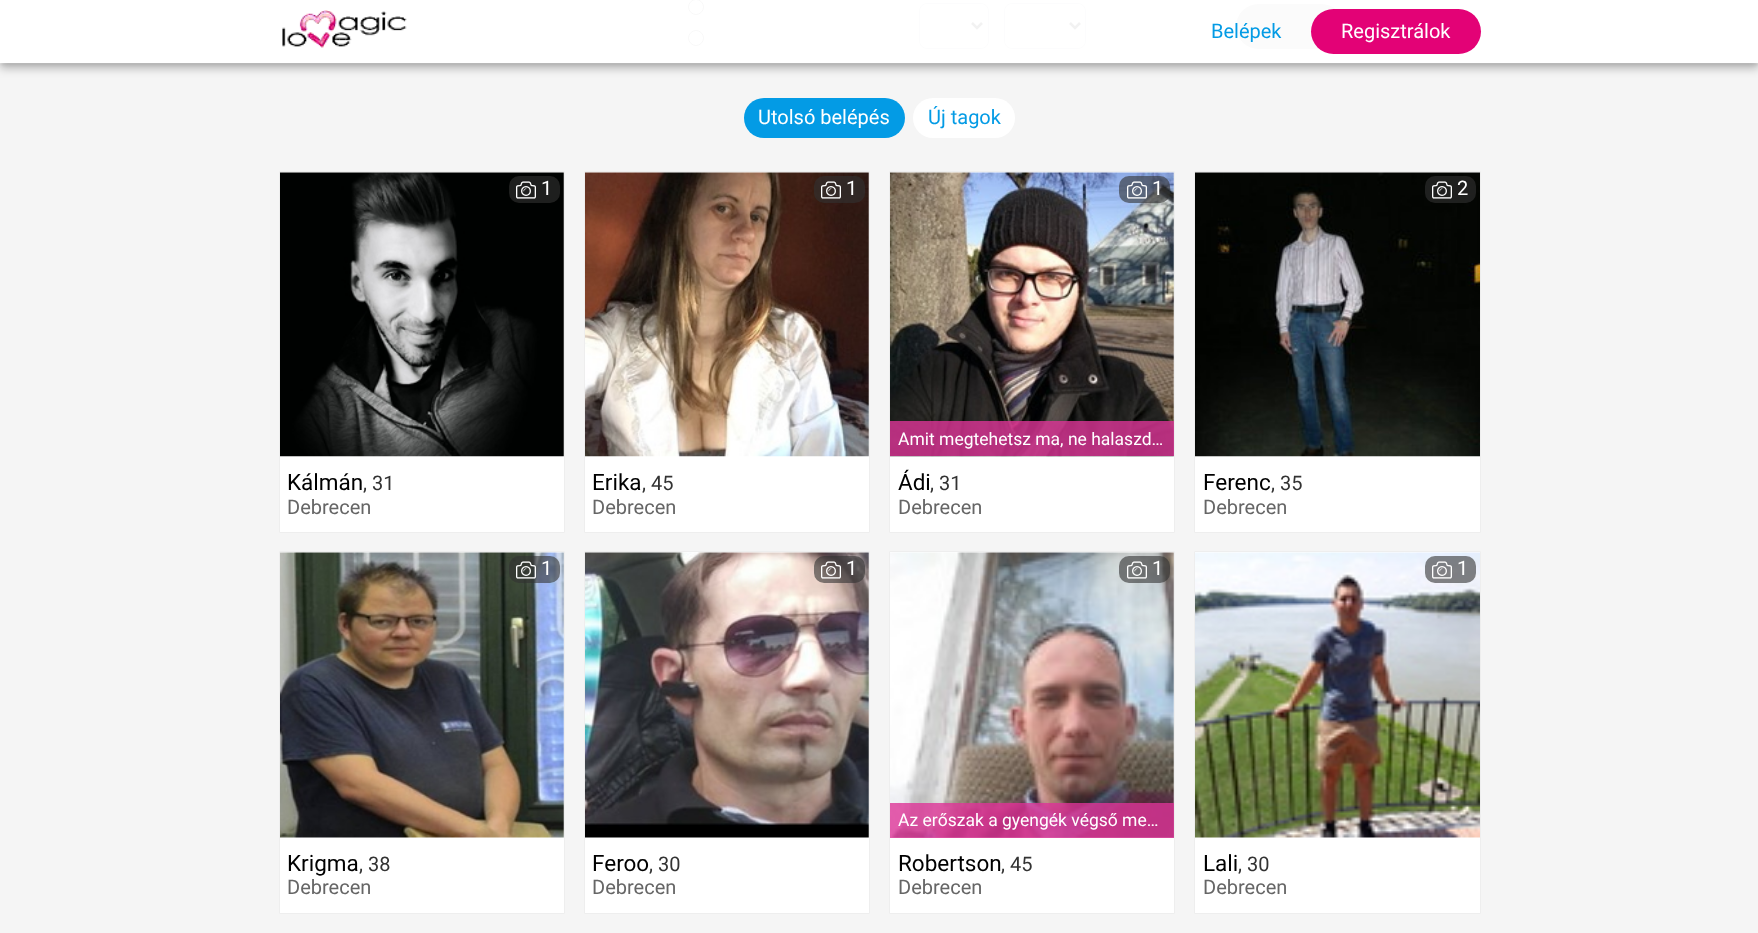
<!DOCTYPE html>
<meta charset="utf-8">
<style>body { margin: 0 } canvas { display: block }</style>
<canvas id="canvas" width="1758" height="933"></canvas>
<img id="img1" src="img_01.png" hidden>
<img id="img2" src="img_02.png" hidden>
<img id="img3" src="img_03.png" hidden>
<img id="img4" src="img_04.png" hidden>
<img id="img5" src="img_05.png" hidden>
<img id="img6" src="img_06.png" hidden>
<img id="img7" src="img_07.png" hidden>
<img id="img8" src="img_08.png" hidden>
<img id="img9" src="img_09.png" hidden>
<script>
window.onload = function () {
	const canvas = document.getElementById("canvas");
	const ctx = canvas.getContext("2d");
	ctx.miterLimit = 4;
	ctx.fontKerning = "normal";
	function txt(s, x, y) {
		ctx.fillText(s, x, y);
	}
	function fill(x, y, w, h) {
		ctx.fillRect(x, y, w, h);
	}
	function round(x, y, w, h, r) {
		ctx.beginPath();
		ctx.roundRect(x, y, w, h, r);
		ctx.fill();
	}
	function img(id, x, y, w, h) {
		ctx.drawImage(document.getElementById(id), x, y, w, h);
	}

	ctx.fillStyle = "#FFFFFF";
	fill(0, 0, 1758, 933);
	ctx.beginPath();
	ctx.arc(696, 7, 7.5, 0, Math.PI * 2);
	ctx.strokeStyle = "#767676";
	ctx.stroke();
	ctx.beginPath();
	ctx.arc(696, 38, 7.5, 0, Math.PI * 2);
	ctx.stroke();
	ctx.beginPath();
	ctx.roundRect(919.5, 3.5, 69, 45, 7.5);
	ctx.strokeStyle = "#C4C7CC";
	ctx.stroke();
	ctx.beginPath();
	ctx.moveTo(972, 23);
	ctx.lineTo(977, 28);
	ctx.lineTo(982, 23);
	ctx.strokeStyle = "#000000";
	ctx.lineWidth = 2.5;
	ctx.stroke();
	ctx.beginPath();
	ctx.roundRect(1004.5, 3.5, 81, 45, 7.5);
	ctx.strokeStyle = "#C4C7CC";
	ctx.lineWidth = 1;
	ctx.stroke();
	ctx.beginPath();
	ctx.moveTo(1070, 23);
	ctx.lineTo(1075, 28);
	ctx.lineTo(1080, 23);
	ctx.strokeStyle = "#000000";
	ctx.lineWidth = 2.5;
	ctx.stroke();
	ctx.fillStyle = "#AAAAAA";
	round(1236, 4, 108, 45, 22.5);
	ctx.fillStyle = "#F5F5F5";
	fill(0, 64, 1758, 869);
	ctx.save();
	ctx.beginPath();
	ctx.moveTo(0, 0);
	ctx.lineTo(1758, 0);
	ctx.lineTo(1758, 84);
	ctx.lineTo(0, 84);
	ctx.closePath();
	ctx.moveTo(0, 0);
	ctx.lineTo(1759, 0);
	ctx.lineTo(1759, 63);
	ctx.lineTo(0, 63);
	ctx.closePath();
	ctx.clip("evenodd");
	ctx.fillStyle = "rgba(0, 0, 0, 0.28)";
	ctx.filter = "blur(5px)";
	ctx.beginPath();
	ctx.rect(0, 5, 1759, 63);
	ctx.fill();
	ctx.filter = "none";
	ctx.restore();
	ctx.save();
	ctx.beginPath();
	ctx.moveTo(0, 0);
	ctx.lineTo(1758, 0);
	ctx.lineTo(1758, 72);
	ctx.lineTo(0, 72);
	ctx.closePath();
	ctx.moveTo(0, 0);
	ctx.lineTo(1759, 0);
	ctx.lineTo(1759, 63);
	ctx.lineTo(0, 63);
	ctx.closePath();
	ctx.clip("evenodd");
	ctx.fillStyle = "rgba(0, 0, 0, 0.14)";
	ctx.filter = "blur(2.5px)";
	ctx.beginPath();
	ctx.rect(0, 0, 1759, 63);
	ctx.fill();
	ctx.filter = "none";
	ctx.restore();
	ctx.fillStyle = "rgba(255, 255, 255, 0.95)";
	fill(0, 0, 1758, 63);
	img("img1", 279, 10, 130, 38);
	ctx.fillStyle = "#E30276";
	round(1311, 9, 170, 45, 22.5);
	ctx.fillStyle = "#039BE5";
	round(744, 98, 161, 40, 20);
	ctx.fillStyle = "#FFFFFF";
	round(913, 98, 102, 40, 20);
	ctx.beginPath();
	ctx.rect(279.5, 171.5, 285, 361);
	ctx.fill();
	ctx.strokeStyle = "#EEEEEE";
	ctx.lineWidth = 1;
	ctx.stroke();
	img("img2", 280, 172, 284, 285);
	ctx.fillStyle = "#1E1F1E";
	round(509, 176, 51, 27, 10);
	ctx.fillStyle = "#FFFFFF";
	ctx.beginPath();
	ctx.rect(584.5, 171.5, 285, 361);
	ctx.fill();
	ctx.stroke();
	img("img3", 585, 172, 284, 285);
	ctx.fillStyle = "rgba(50, 50, 50, 0.6)";
	round(814, 176, 51, 27, 10);
	ctx.fillStyle = "#FFFFFF";
	ctx.beginPath();
	ctx.rect(889.5, 171.5, 285, 361);
	ctx.fill();
	ctx.stroke();
	img("img4", 890, 172, 284, 285);
	ctx.fillStyle = "rgba(50, 50, 50, 0.6)";
	round(1119, 176, 51, 27, 10);
	ctx.fillStyle = "rgba(221, 52, 151, 0.8)";
	fill(890, 421, 284, 35);
	ctx.fillStyle = "#FFFFFF";
	ctx.beginPath();
	ctx.rect(1194.5, 171.5, 286, 361);
	ctx.fill();
	ctx.stroke();
	img("img5", 1195, 172, 285, 285);
	ctx.fillStyle = "rgba(50, 50, 50, 0.6)";
	round(1425, 176, 51, 27, 10);
	ctx.fillStyle = "#FFFFFF";
	ctx.beginPath();
	ctx.rect(279.5, 551.5, 285, 362);
	ctx.fill();
	ctx.stroke();
	img("img6", 280, 552, 284, 286);
	ctx.fillStyle = "rgba(50, 50, 50, 0.6)";
	round(509, 556, 51, 27, 10);
	ctx.fillStyle = "#FFFFFF";
	ctx.beginPath();
	ctx.rect(584.5, 551.5, 285, 362);
	ctx.fill();
	ctx.stroke();
	img("img7", 585, 552, 284, 286);
	ctx.fillStyle = "rgba(50, 50, 50, 0.6)";
	round(814, 556, 51, 27, 10);
	ctx.fillStyle = "#FFFFFF";
	ctx.beginPath();
	ctx.rect(889.5, 551.5, 285, 362);
	ctx.fill();
	ctx.stroke();
	img("img8", 890, 552, 284, 286);
	ctx.fillStyle = "rgba(50, 50, 50, 0.6)";
	round(1119, 556, 51, 27, 10);
	ctx.fillStyle = "rgba(221, 52, 151, 0.8)";
	fill(890, 803, 284, 35);
	ctx.fillStyle = "#FFFFFF";
	ctx.beginPath();
	ctx.rect(1194.5, 551.5, 286, 362);
	ctx.fill();
	ctx.stroke();
	img("img9", 1195, 552, 285, 286);
	ctx.fillStyle = "rgba(50, 50, 50, 0.6)";
	round(1425, 556, 51, 27, 10);
	ctx.font = "20px Roboto";
	ctx.fillStyle = "#039BE5";
	txt("Belépek", 1211, 38);
	ctx.fillStyle = "#FFFFFF";
	txt("Regisztrálok", 1341, 38);
	txt("Utolsó belépés", 758, 124);
	ctx.fillStyle = "#039BE5";
	txt("Új tagok", 928, 124);
	ctx.font = "20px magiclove";
	ctx.fillStyle = "#FFFFFF";
	txt("1", 516, 200);
	ctx.font = "20px Roboto";
	txt("1", 541, 195);
	ctx.font = "22.5px Roboto";
	ctx.fillStyle = "#000000";
	txt("Kálmán", 287, 490);
	ctx.font = "20px Roboto";
	ctx.fillStyle = "#333333";
	txt(", 31", 363, 490);
	ctx.fillStyle = "#666666";
	txt("Debrecen", 287, 514);
	ctx.font = "20px magiclove";
	ctx.fillStyle = "#FFFFFF";
	txt("1", 821, 200);
	ctx.font = "20px Roboto";
	txt("1", 846, 195);
	ctx.font = "22.5px Roboto";
	ctx.fillStyle = "#000000";
	txt("Erika", 592, 490);
	ctx.font = "20px Roboto";
	ctx.fillStyle = "#333333";
	txt(", 45", 642, 490);
	ctx.fillStyle = "#666666";
	txt("Debrecen", 592, 514);
	ctx.font = "20px magiclove";
	ctx.fillStyle = "#FFFFFF";
	txt("1", 1127, 200);
	ctx.font = "20px Roboto";
	txt("1", 1152, 195);
	ctx.font = "17.5px Roboto";
	txt("Amit megtehetsz ma, ne halaszd…", 898, 445);
	ctx.font = "22.5px Roboto";
	ctx.fillStyle = "#000000";
	txt("Ádi", 898, 490);
	ctx.font = "20px Roboto";
	ctx.fillStyle = "#333333";
	txt(", 31", 930, 490);
	ctx.fillStyle = "#666666";
	txt("Debrecen", 898, 514);
	ctx.font = "20px magiclove";
	ctx.fillStyle = "#FFFFFF";
	txt("1", 1432, 200);
	ctx.font = "20px Roboto";
	txt("2", 1457, 195);
	ctx.font = "22.5px Roboto";
	ctx.fillStyle = "#000000";
	txt("Ferenc", 1203, 490);
	ctx.font = "20px Roboto";
	ctx.fillStyle = "#333333";
	txt(", 35", 1271, 490);
	ctx.fillStyle = "#666666";
	txt("Debrecen", 1203, 514);
	ctx.font = "20px magiclove";
	ctx.fillStyle = "#FFFFFF";
	txt("1", 516, 580);
	ctx.font = "20px Roboto";
	txt("1", 541, 575);
	ctx.font = "22.5px Roboto";
	ctx.fillStyle = "#000000";
	txt("Krigma", 287, 871);
	ctx.font = "20px Roboto";
	ctx.fillStyle = "#333333";
	txt(", 38", 359, 871);
	ctx.fillStyle = "#666666";
	txt("Debrecen", 287, 894);
	ctx.font = "20px magiclove";
	ctx.fillStyle = "#FFFFFF";
	txt("1", 821, 580);
	ctx.font = "20px Roboto";
	txt("1", 846, 575);
	ctx.font = "22.5px Roboto";
	ctx.fillStyle = "#000000";
	txt("Feroo", 592, 871);
	ctx.font = "20px Roboto";
	ctx.fillStyle = "#333333";
	txt(", 30", 649, 871);
	ctx.fillStyle = "#666666";
	txt("Debrecen", 592, 894);
	ctx.font = "20px magiclove";
	ctx.fillStyle = "#FFFFFF";
	txt("1", 1127, 580);
	ctx.font = "20px Roboto";
	txt("1", 1152, 575);
	ctx.font = "17.5px Roboto";
	txt("Az erőszak a gyengék végső me…", 898, 826);
	ctx.font = "22.5px Roboto";
	ctx.fillStyle = "#000000";
	txt("Robertson", 898, 871);
	ctx.font = "20px Roboto";
	ctx.fillStyle = "#333333";
	txt(", 45", 1001, 871);
	ctx.fillStyle = "#666666";
	txt("Debrecen", 898, 894);
	ctx.font = "20px magiclove";
	ctx.fillStyle = "#FFFFFF";
	txt("1", 1432, 580);
	ctx.font = "20px Roboto";
	txt("1", 1457, 575);
	ctx.font = "22.5px Roboto";
	ctx.fillStyle = "#000000";
	txt("Lali", 1203, 871);
	ctx.font = "20px Roboto";
	ctx.fillStyle = "#333333";
	txt(", 30", 1238, 871);
	ctx.fillStyle = "#666666";
	txt("Debrecen", 1203, 894);
};
</script>
